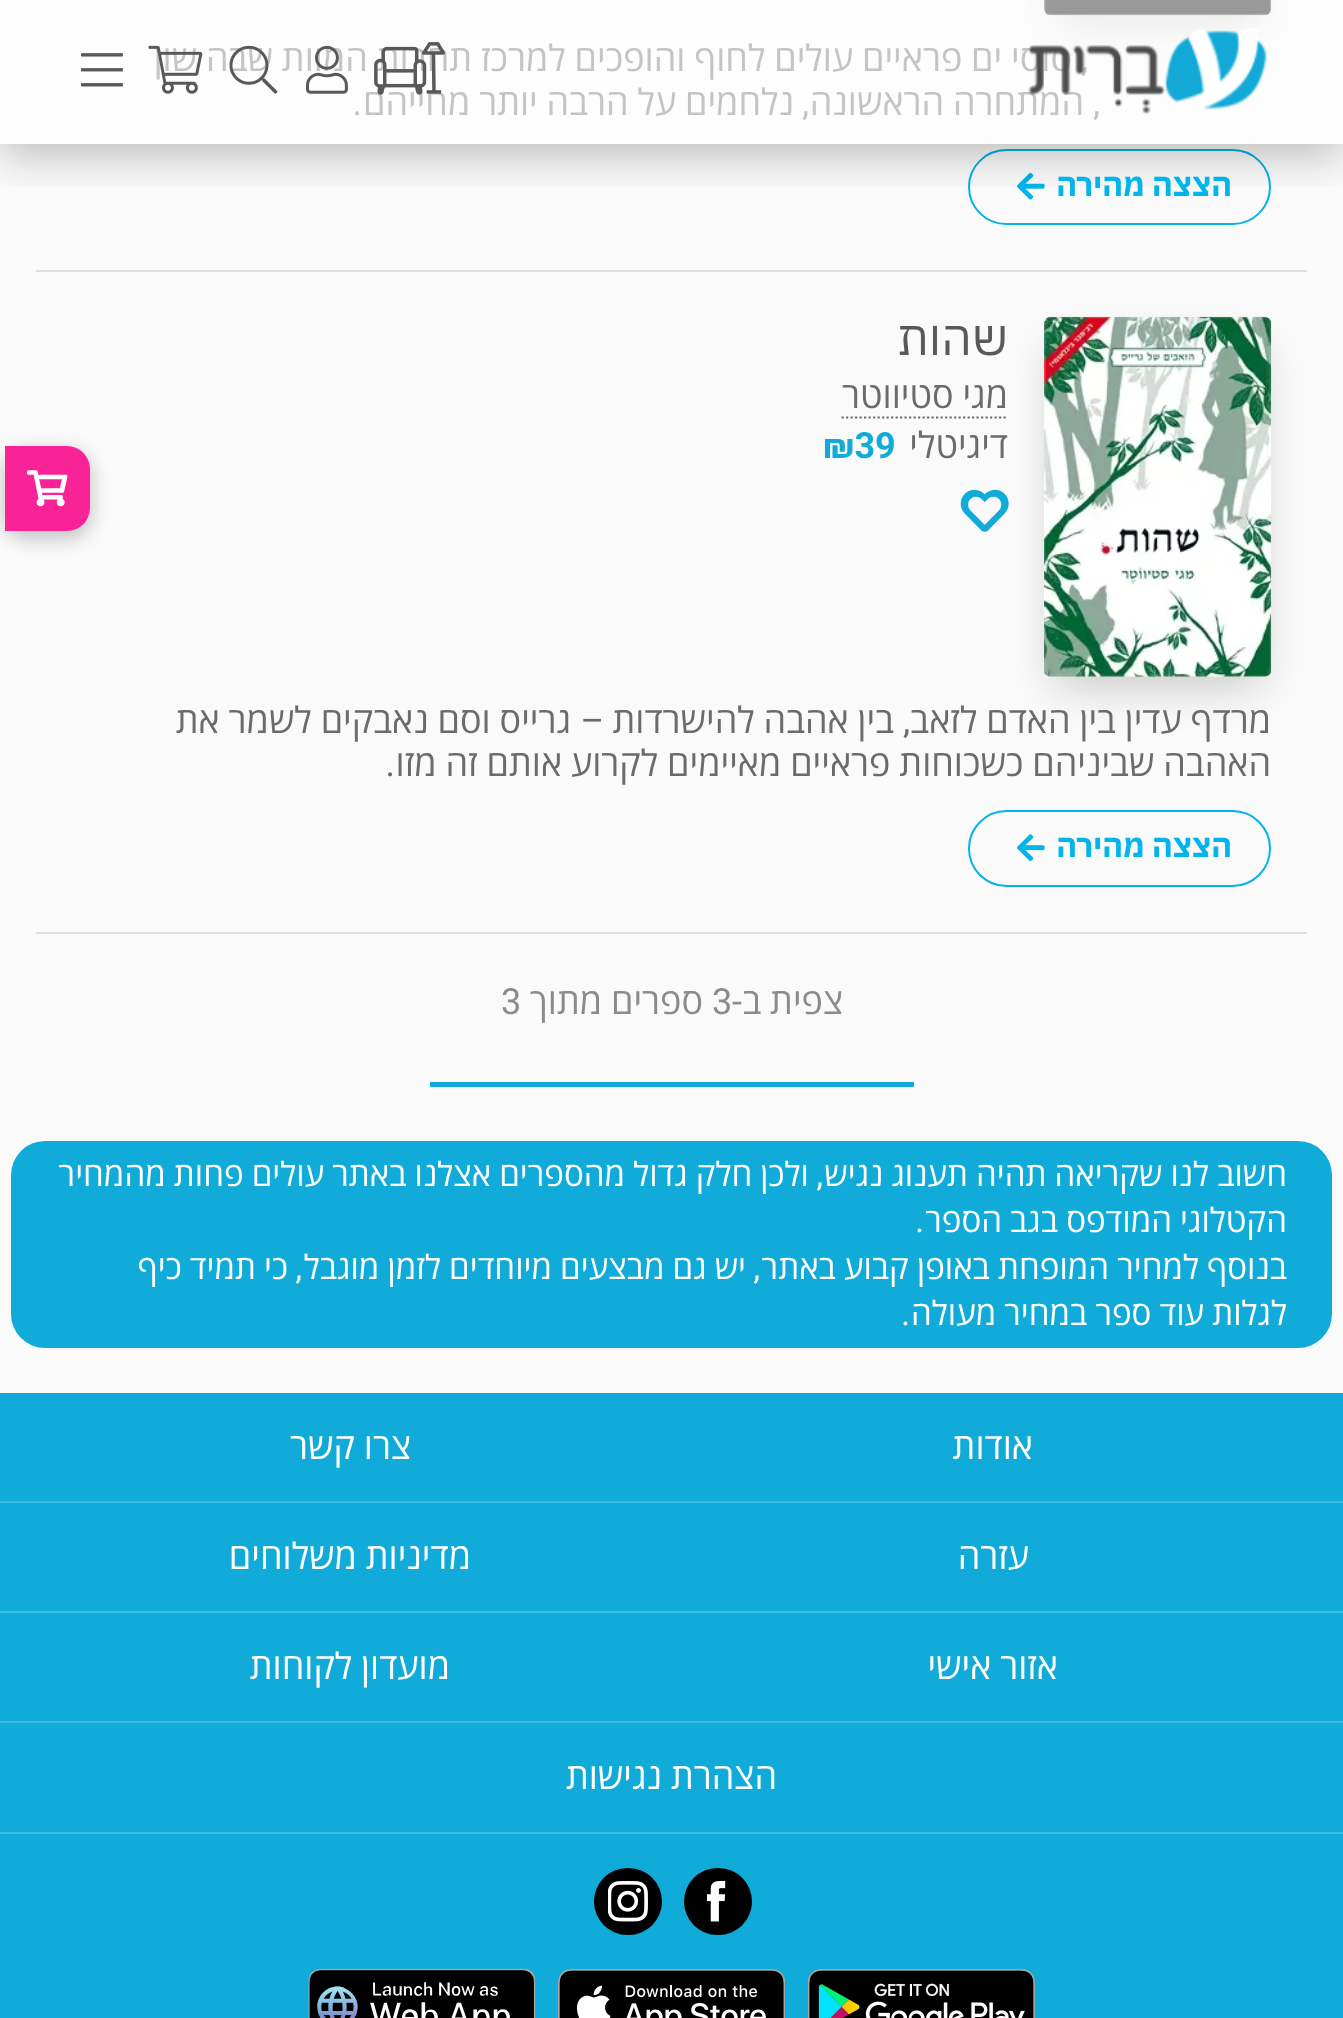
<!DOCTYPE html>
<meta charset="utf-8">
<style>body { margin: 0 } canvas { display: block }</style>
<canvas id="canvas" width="1343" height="2018"></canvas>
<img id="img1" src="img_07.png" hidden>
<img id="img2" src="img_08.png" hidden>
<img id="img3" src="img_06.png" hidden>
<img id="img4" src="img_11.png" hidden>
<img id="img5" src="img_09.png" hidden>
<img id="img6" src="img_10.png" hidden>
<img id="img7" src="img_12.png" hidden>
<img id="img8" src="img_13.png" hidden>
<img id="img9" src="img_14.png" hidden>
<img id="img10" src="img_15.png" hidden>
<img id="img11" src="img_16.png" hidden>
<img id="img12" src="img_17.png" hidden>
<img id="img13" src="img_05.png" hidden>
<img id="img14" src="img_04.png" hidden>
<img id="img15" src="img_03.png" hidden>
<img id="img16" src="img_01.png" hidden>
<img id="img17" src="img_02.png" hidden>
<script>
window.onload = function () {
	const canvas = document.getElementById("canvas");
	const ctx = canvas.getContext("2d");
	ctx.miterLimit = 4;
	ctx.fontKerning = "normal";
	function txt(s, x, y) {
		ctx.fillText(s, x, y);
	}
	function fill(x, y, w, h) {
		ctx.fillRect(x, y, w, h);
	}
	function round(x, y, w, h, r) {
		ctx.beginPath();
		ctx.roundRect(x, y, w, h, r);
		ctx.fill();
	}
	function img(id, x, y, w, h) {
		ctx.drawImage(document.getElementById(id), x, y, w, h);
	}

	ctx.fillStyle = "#FAFAFA";
	fill(0, 0, 1343, 2018);
	ctx.fillStyle = "#FDFDFD";
	fill(0, 0, 1343, 144);
	ctx.fillStyle = "rgba(153, 153, 153, 0.2)";
	ctx.filter = "blur(22.5px)";
	ctx.beginPath();
	ctx.rect(1055, -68, 205, 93);
	ctx.fill();
	ctx.filter = "none";
	img("img1", 1044, 0, 228, 16);
	ctx.beginPath();
	ctx.roundRect(969, 150, 301, 74, 37);
	ctx.strokeStyle = "#00B4EC";
	ctx.lineWidth = 2;
	ctx.stroke();
	img("img2", 1017, 172, 28, 28);
	ctx.save();
	ctx.beginPath();
	ctx.rect(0, 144, 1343, 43);
	ctx.clip();
	ctx.fillStyle = "rgba(0, 0, 0, 0.25)";
	ctx.filter = "blur(22.5px)";
	ctx.beginPath();
	ctx.rect(0, 11, 1343, 144);
	ctx.fill();
	ctx.filter = "none";
	ctx.restore();
	img("img3", 81, 53, 42, 34);
	ctx.fillStyle = "#DFDFDF";
	fill(36, 270, 1271, 2);
	fill(36, 932, 1271, 2);
	ctx.beginPath();
	ctx.moveTo(841.5, 417.5);
	ctx.lineTo(1008, 417.5);
	ctx.strokeStyle = "#6B6B6B";
	ctx.lineWidth = 2.2;
	ctx.setLineDash([2.25, 2.25]);
	ctx.stroke();
	img("img4", 960, 489, 49, 43);
	ctx.fillStyle = "rgba(0, 0, 0, 0.2)";
	ctx.filter = "blur(22.5px)";
	ctx.beginPath();
	ctx.rect(1055, 349, 205, 337);
	ctx.fill();
	ctx.filter = "none";
	img("img5", 1044, 316, 228, 361);
	ctx.filter = "blur(9px)";
	ctx.beginPath();
	ctx.roundRect(2, 450, 90, 90, 25);
	ctx.fill();
	ctx.filter = "none";
	ctx.fillStyle = "#FA2297";
	ctx.beginPath();
	ctx.roundRect(5, 446, 85, 85, [0, 23, 23, 0]);
	ctx.fill();
	img("img6", 27, 470, 41, 37);
	ctx.beginPath();
	ctx.roundRect(969, 811, 301, 75, 37.5);
	ctx.strokeStyle = "#00B4EC";
	ctx.lineWidth = 2;
	ctx.setLineDash([]);
	ctx.stroke();
	img("img7", 1017, 834, 28, 28);
	ctx.fillStyle = "#10ABD9";
	fill(430, 1082, 484, 5);
	round(11, 1141, 1321, 207, 34);
	fill(0, 1393, 1343, 625);
	ctx.fillStyle = "#40BCE1";
	fill(0, 1501, 1343, 2);
	fill(0, 1611, 1343, 2);
	fill(0, 1721, 1343, 2);
	fill(0, 1832, 1343, 2);
	ctx.fillStyle = "#000000";
	round(684, 1868, 68, 67, 33.5);
	img("img8", 707, 1881, 19, 41);
	round(594, 1868, 68, 67, 33.5);
	img("img9", 608, 1881, 40, 41);
	img("img10", 808, 1969, 227, 49);
	img("img11", 558, 1969, 227, 49);
	img("img12", 308, 1968, 228, 50);
	ctx.direction = "rtl";
	ctx.font = "36px Roboto";
	ctx.fillStyle = "#C4C4C4";
	txt(",", 1088, 71);
	ctx.wordSpacing = "-0.5px";
	ctx.font = "36px Open Sans";
	txt("סוסי ים פראיים עולים לחוף והופכים למרכז תחרות המוות שבה שון", 1072, 71);
	img("img13", 148, 45, 55, 49);
	img("img14", 229, 45, 49, 49);
	img("img15", 306, 45, 42, 49);
	ctx.wordSpacing = "0px";
	ctx.font = "36px Roboto";
	txt(",", 1100, 115);
	ctx.wordSpacing = "-0.5px";
	ctx.font = "36px Open Sans";
	txt("המתחרה הראשונה", 1084, 115);
	img("img16", 1027, 28, 241, 87);
	ctx.wordSpacing = "0px";
	ctx.font = "36px Roboto";
	txt(",", 809, 115);
	ctx.wordSpacing = "-0.5px";
	ctx.font = "36px Open Sans";
	txt("נלחמים על הרבה יותר מחייהם", 794, 115);
	img("img17", 374, 42, 71, 53);
	ctx.wordSpacing = "0px";
	ctx.font = "36px Roboto";
	txt(".", 362, 115);
	ctx.font = "bold 31.5px IBM Plex Sans Hebrew";
	ctx.fillStyle = "#00B4EC";
	txt("הצצה מהירה", 1232, 196);
	ctx.font = "48px IBM Plex Sans Hebrew";
	ctx.fillStyle = "#58595B";
	txt("שהות", 1008, 355);
	ctx.wordSpacing = "-0.5px";
	ctx.font = "36px Open Sans";
	ctx.fillStyle = "#6B6B6B";
	txt("מגי סטיווטר", 1008, 408);
	ctx.wordSpacing = "0px";
	txt("דיגיטלי", 1008, 458);
	ctx.direction = "ltr";
	ctx.font = "bold 36px Roboto";
	ctx.fillStyle = "#10ABD9";
	txt("₪39", 823, 458);
	ctx.wordSpacing = "-0.5px";
	ctx.direction = "rtl";
	ctx.font = "36px Open Sans";
	ctx.fillStyle = "#6B6B6B";
	txt("מרדף עדין בין האדם לזאב", 1271, 733);
	txt("בין אהבה להישרדות", 894, 733);
	ctx.wordSpacing = "0px";
	ctx.font = "36px Roboto";
	txt("–", 604, 733);
	ctx.wordSpacing = "-0.5px";
	ctx.font = "36px Open Sans";
	txt("גרייס וסם נאבקים לשמר את", 571, 733);
	ctx.wordSpacing = "0px";
	ctx.font = "36px Roboto";
	txt(",", 910, 733);
	ctx.save();
	ctx.beginPath();
	ctx.rect(72, 700, 1199, 85);
	ctx.clip();
	ctx.wordSpacing = "-0.5px";
	ctx.font = "36px Open Sans";
	txt("האהבה שביניהם כשכוחות פראיים מאיימים לקרוע אותם זה מזו", 1271, 776);
	ctx.restore();
	txt(".", 395, 776);
	ctx.font = "bold 31.5px IBM Plex Sans Hebrew";
	ctx.fillStyle = "#00B4EC";
	txt("הצצה מהירה", 1232, 857);
	ctx.wordSpacing = "-0.5px";
	ctx.font = "36px Open Sans";
	ctx.fillStyle = "#8B8B8B";
	txt("צפית ב", 843, 1014);
	ctx.wordSpacing = "0px";
	ctx.font = "36px Roboto";
	txt("-", 742, 1014);
	ctx.direction = "ltr";
	txt("3", 712, 1014);
	ctx.wordSpacing = "-0.5px";
	ctx.direction = "rtl";
	ctx.font = "36px Open Sans";
	txt("ספרים מתוך", 703, 1014);
	ctx.wordSpacing = "0px";
	ctx.direction = "ltr";
	ctx.font = "36px Roboto";
	txt("3", 501, 1014);
	ctx.wordSpacing = "-0.5px";
	ctx.direction = "rtl";
	ctx.font = "33.1px Open Sans";
	ctx.fillStyle = "#FFFFFF";
	txt("חשוב לנו שקריאה תהיה תענוג נגיש", 1287, 1186);
	ctx.wordSpacing = "0px";
	ctx.font = "33.1px Roboto";
	txt(",", 823, 1186);
	ctx.wordSpacing = "-0.5px";
	ctx.font = "33.1px Open Sans";
	txt("ולכן חלק גדול מהספרים אצלנו באתר עולים פחות מהמחיר", 809, 1186);
	txt("הקטלוגי המודפס בגב הספר", 1287, 1232);
	ctx.wordSpacing = "0px";
	ctx.font = "33.1px Roboto";
	txt(".", 924, 1232);
	ctx.wordSpacing = "-0.5px";
	ctx.font = "33.1px Open Sans";
	txt("בנוסף למחיר המופחת באופן קבוע באתר", 1287, 1279);
	ctx.wordSpacing = "0px";
	ctx.font = "33.1px Roboto";
	txt(",", 760, 1279);
	ctx.wordSpacing = "-0.5px";
	ctx.font = "33.1px Open Sans";
	txt("יש גם מבצעים מיוחדים לזמן מוגבל", 746, 1279);
	ctx.wordSpacing = "0px";
	ctx.font = "33.1px Roboto";
	txt(",", 302, 1279);
	ctx.wordSpacing = "-0.5px";
	ctx.font = "33.1px Open Sans";
	txt("כי תמיד כיף", 288, 1279);
	txt("לגלות עוד ספר במחיר מעולה", 1287, 1325);
	ctx.wordSpacing = "0px";
	ctx.font = "33.1px Roboto";
	txt(".", 910, 1325);
	ctx.font = "36px Open Sans";
	txt("אודות", 1033, 1459);
	ctx.wordSpacing = "-0.5px";
	txt("צרו קשר", 411, 1459);
	ctx.wordSpacing = "0px";
	txt("עזרה", 1029, 1569);
	ctx.wordSpacing = "-0.5px";
	txt("מדיניות משלוחים", 471, 1569);
	txt("אזור אישי", 1058, 1679);
	txt("מועדון לקוחות", 450, 1679);
	txt("הצהרת נגישות", 777, 1789);
};
</script>
